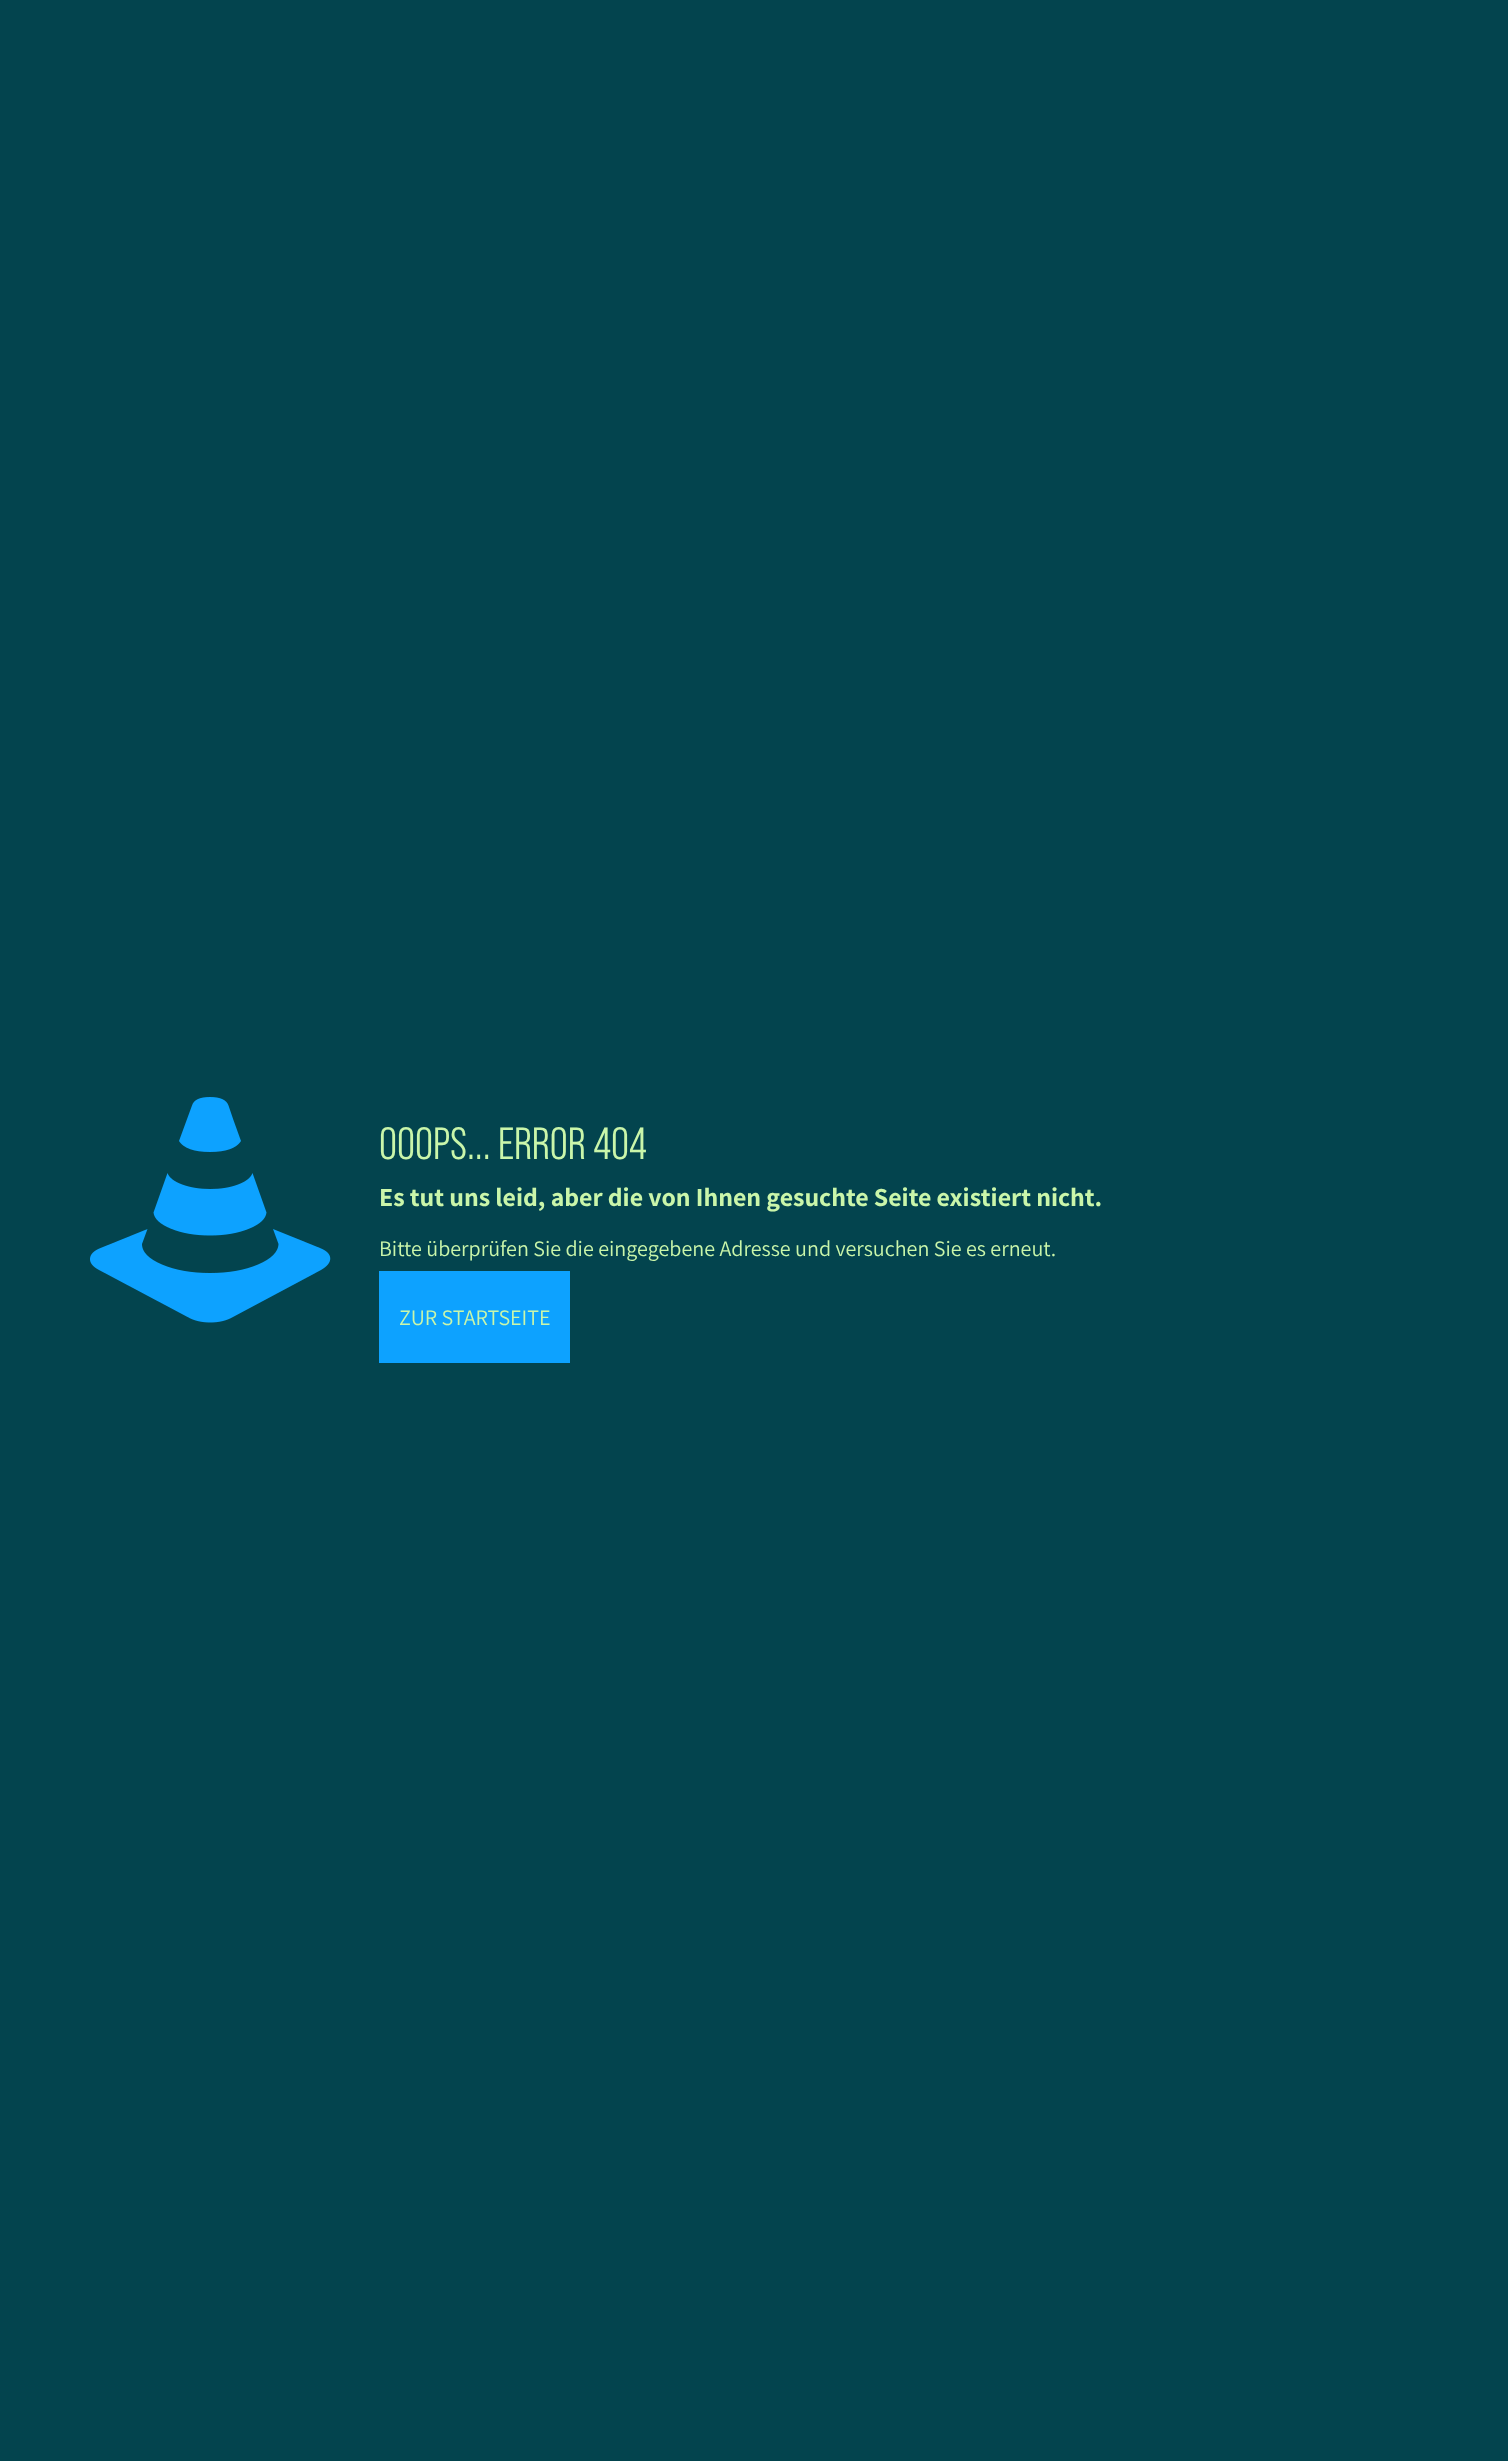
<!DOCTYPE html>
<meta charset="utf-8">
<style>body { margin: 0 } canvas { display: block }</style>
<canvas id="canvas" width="1508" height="2461"></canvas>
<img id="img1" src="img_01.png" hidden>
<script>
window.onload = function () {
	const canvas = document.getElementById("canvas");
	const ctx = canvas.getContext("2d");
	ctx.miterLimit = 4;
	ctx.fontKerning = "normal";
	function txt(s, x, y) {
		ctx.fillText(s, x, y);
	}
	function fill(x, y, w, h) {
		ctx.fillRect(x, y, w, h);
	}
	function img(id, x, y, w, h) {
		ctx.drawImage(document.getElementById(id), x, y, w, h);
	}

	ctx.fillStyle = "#03444E";
	fill(0, 0, 1508, 2461);
	img("img1", 90, 1097, 241, 226);
	ctx.fillStyle = "#0DA2FF";
	fill(379, 1271, 191, 92);
	ctx.font = "45px Bebas Neue";
	ctx.fillStyle = "#CAF6AA";
	txt("OOOPS... ERROR 404", 379, 1159);
	ctx.font = "200 26px Assistant";
	txt("Es tut uns leid, aber die von Ihnen gesuchte Seite existiert nicht.", 379, 1206);
	ctx.font = "200 22px 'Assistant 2'";
	txt("Bitte überprüfen Sie die eingegebene Adresse und versuchen Sie es erneut.", 379, 1256);
	txt("ZUR STARTSEITE", 399, 1325);
};
</script>
